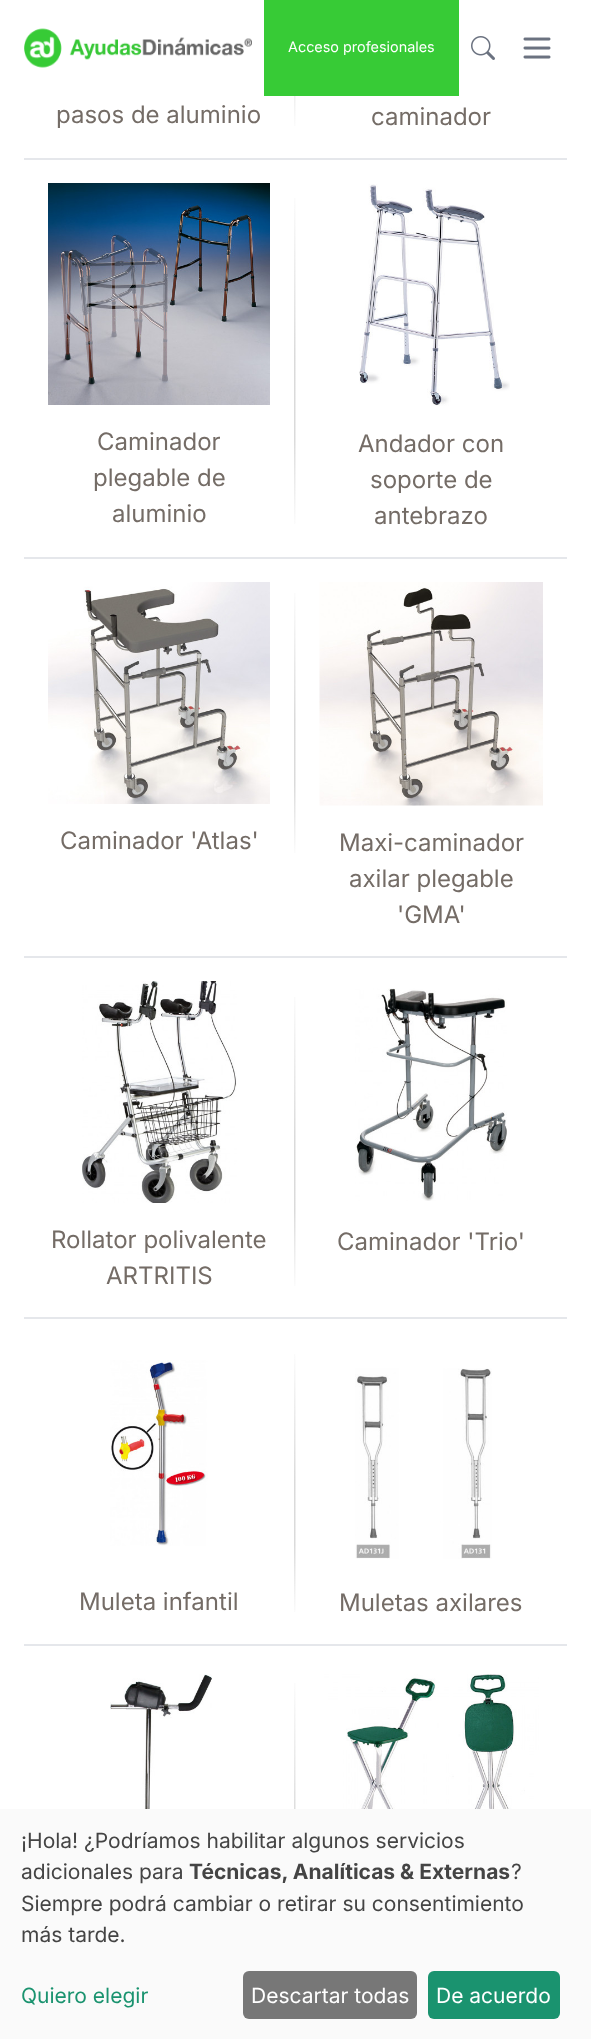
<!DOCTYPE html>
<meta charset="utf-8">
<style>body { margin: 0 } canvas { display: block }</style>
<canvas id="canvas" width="591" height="2039"></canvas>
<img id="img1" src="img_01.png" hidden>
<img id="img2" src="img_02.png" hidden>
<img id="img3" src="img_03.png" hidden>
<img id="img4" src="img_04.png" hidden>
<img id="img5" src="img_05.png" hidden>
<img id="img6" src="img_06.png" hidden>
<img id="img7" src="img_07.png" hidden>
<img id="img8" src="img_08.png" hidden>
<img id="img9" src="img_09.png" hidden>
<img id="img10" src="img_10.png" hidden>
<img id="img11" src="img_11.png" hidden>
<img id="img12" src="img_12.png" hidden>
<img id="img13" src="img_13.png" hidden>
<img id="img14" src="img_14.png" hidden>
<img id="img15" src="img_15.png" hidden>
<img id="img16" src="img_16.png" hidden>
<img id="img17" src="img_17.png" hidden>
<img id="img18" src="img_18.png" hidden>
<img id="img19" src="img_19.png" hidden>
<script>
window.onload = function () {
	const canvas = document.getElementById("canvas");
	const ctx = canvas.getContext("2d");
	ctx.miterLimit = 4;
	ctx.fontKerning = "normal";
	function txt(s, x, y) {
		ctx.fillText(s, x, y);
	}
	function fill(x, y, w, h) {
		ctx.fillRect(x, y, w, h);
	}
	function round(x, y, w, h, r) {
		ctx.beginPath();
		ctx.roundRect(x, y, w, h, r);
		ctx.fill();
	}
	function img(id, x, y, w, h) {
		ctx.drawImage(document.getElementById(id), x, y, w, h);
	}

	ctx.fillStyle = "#FFFFFF";
	fill(0, 0, 591, 2039);
	img("img1", 24, 28, 228, 40);
	ctx.fillStyle = "#37CB36";
	fill(264, 0, 195, 96);
	img("img2", 471, 36, 24, 24);
	img("img3", 523, 37, 28, 22);
	img("img4", 294, 96, 2, 30);
	ctx.fillStyle = "#E5E7EB";
	fill(24, 158, 543, 2);
	img("img5", 294, 198, 2, 326);
	img("img6", 48, 183, 222, 222);
	img("img7", 359, 184, 151, 222);
	fill(24, 557, 543, 2);
	img("img8", 294, 593, 2, 260);
	img("img9", 48, 582, 222, 222);
	img("img10", 319, 582, 224, 224);
	fill(24, 956, 543, 2);
	img("img11", 294, 997, 2, 289);
	img("img12", 82, 981, 155, 222);
	img("img13", 355, 988, 152, 213);
	fill(24, 1317, 543, 2);
	img("img14", 294, 1354, 2, 258);
	img("img15", 110, 1360, 98, 186);
	img("img16", 355, 1368, 137, 191);
	fill(24, 1644, 543, 2);
	img("img17", 294, 1683, 2, 126);
	img("img18", 110, 1674, 102, 135);
	img("img19", 324, 1674, 215, 135);
	ctx.fillStyle = "#FAFAFA";
	fill(0, 1809, 591, 230);
	ctx.fillStyle = "#777777";
	round(243, 1971, 174, 48, 6);
	ctx.fillStyle = "#1A936F";
	round(428, 1971, 132, 48, 6);
	ctx.font = "14.4px Inter";
	ctx.fillStyle = "#FFFFFF";
	txt("Acceso profesionales", 288, 52);
	ctx.font = "24px Inter";
	ctx.fillStyle = "#746C66";
	txt("pasos de aluminio", 56, 123);
	txt("caminador", 371, 125);
	txt("Caminador", 97, 450);
	txt("plegable de", 93, 486);
	txt("aluminio", 112, 522);
	txt("Andador con", 358, 452);
	txt("soporte de", 370, 488);
	txt("antebrazo", 374, 524);
	txt("Caminador 'Atlas'", 60, 849);
	txt("Maxi-caminador", 339, 851);
	txt("axilar plegable", 349, 887);
	txt("'GMA'", 397, 923);
	txt("Rollator polivalente", 51, 1248);
	txt("ARTRITIS", 106, 1284);
	txt("Caminador 'Trio'", 337, 1250);
	txt("Muleta infantil", 79, 1610);
	txt("Muletas axilares", 339, 1611);
	ctx.font = "21px Inter";
	ctx.fillStyle = "#444444";
	txt("¡Hola! ¿Podríamos habilitar algunos servicios", 21, 1848);
	txt("adicionales para", 21, 1879);
	ctx.font = "bold 21px Inter";
	txt("Técnicas, Analíticas & Externas", 189, 1879);
	ctx.font = "21px Inter";
	txt("?", 511, 1879);
	txt("Siempre podrá cambiar o retirar su consentimiento", 21, 1911);
	txt("más tarde.", 21, 1942);
	ctx.fillStyle = "#1A936F";
	txt("Quiero elegir", 21, 2003);
	ctx.fillStyle = "#FFFFFF";
	txt("Descartar todas", 251, 2003);
	txt("De acuerdo", 436, 2003);
};
</script>
